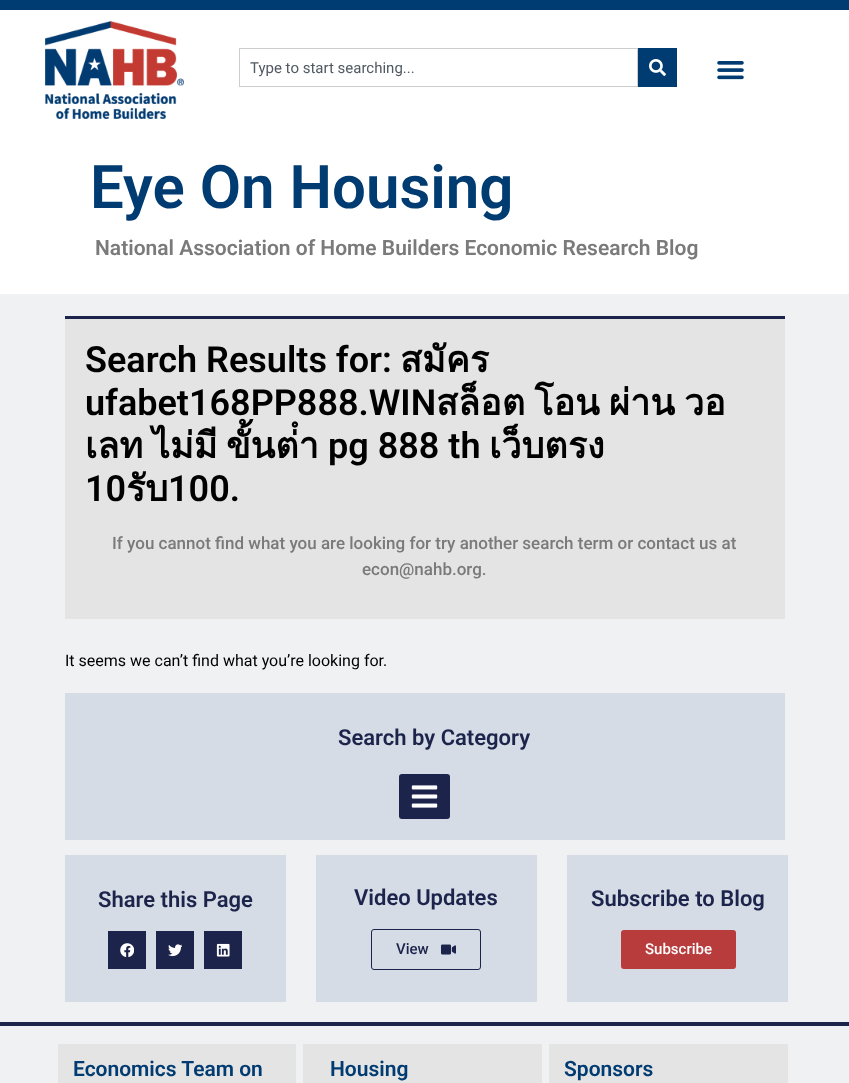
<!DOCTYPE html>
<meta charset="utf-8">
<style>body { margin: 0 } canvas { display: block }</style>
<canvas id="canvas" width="849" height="1083"></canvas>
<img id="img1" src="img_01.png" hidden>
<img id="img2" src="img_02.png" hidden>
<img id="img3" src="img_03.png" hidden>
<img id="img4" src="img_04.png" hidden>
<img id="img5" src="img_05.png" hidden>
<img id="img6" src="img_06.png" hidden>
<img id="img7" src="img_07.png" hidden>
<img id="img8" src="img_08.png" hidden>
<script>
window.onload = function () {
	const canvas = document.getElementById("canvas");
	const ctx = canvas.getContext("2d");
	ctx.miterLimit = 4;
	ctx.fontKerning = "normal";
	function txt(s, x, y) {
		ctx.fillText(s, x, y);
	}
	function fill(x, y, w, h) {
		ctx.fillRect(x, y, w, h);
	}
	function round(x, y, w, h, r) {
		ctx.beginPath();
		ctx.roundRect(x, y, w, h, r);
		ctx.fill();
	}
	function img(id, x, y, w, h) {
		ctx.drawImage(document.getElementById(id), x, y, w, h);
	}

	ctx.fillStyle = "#F0F1F2";
	fill(0, 0, 849, 1083);
	ctx.fillStyle = "#FFFFFF";
	fill(0, 10, 849, 284);
	ctx.fillStyle = "#003B71";
	fill(0, 0, 849, 10);
	img("img1", 45, 21, 139, 98);
	ctx.strokeStyle = "#CDCDCD";
	ctx.strokeRect(239.5, 48.5, 398, 38);
	fill(638, 48, 39, 39);
	img("img2", 649, 59, 17, 17);
	img("img3", 717, 61, 27, 19);
	ctx.fillStyle = "#E4E4E4";
	fill(65, 319, 720, 300);
	ctx.fillStyle = "#1C244B";
	fill(65, 316, 720, 3);
	ctx.fillStyle = "#D5DCE5";
	fill(65, 693, 720, 147);
	ctx.fillStyle = "#1C244B";
	round(399, 774, 51, 45, 3);
	img("img4", 411, 785, 27, 23);
	ctx.fillStyle = "#D5DCE5";
	fill(65, 855, 221, 147);
	ctx.fillStyle = "#1C244B";
	fill(108, 931, 38, 38);
	img("img5", 120, 943, 14, 14);
	fill(156, 931, 38, 38);
	img("img6", 168, 944, 14, 13);
	fill(204, 931, 38, 38);
	img("img7", 216, 943, 14, 14);
	ctx.fillStyle = "#D5DCE5";
	fill(316, 855, 221, 147);
	ctx.beginPath();
	ctx.roundRect(371.5, 929.5, 109, 40, 2.5);
	ctx.strokeStyle = "#1C244B";
	ctx.stroke();
	img("img8", 441, 944, 15, 11);
	fill(567, 855, 221, 147);
	ctx.fillStyle = "#B83C3C";
	round(621, 930, 115, 39, 3);
	ctx.fillStyle = "#1C244B";
	fill(0, 1022, 849, 4);
	ctx.fillStyle = "#E4E4E4";
	fill(58, 1044, 238, 39);
	fill(303, 1044, 239, 39);
	fill(549, 1044, 239, 39);
	ctx.font = "15px Roboto";
	ctx.fillStyle = "#515962";
	txt("Type to start searching...", 250, 73);
	ctx.font = "600 60px Roboto";
	ctx.fillStyle = "#003B71";
	txt("Eye On Housing", 90, 208);
	ctx.font = "600 21px Roboto";
	ctx.fillStyle = "#7A7A7A";
	txt("National Association of Home Builders Economic Research Blog", 95, 255);
	ctx.font = "600 36px Roboto";
	ctx.fillStyle = "#000000";
	txt("Search Results for:", 85, 372);
	ctx.font = "bold 36px Loma";
	txt("สมัคร", 400, 372);
	ctx.font = "600 36px Roboto";
	txt("ufabet168PP888.WIN", 85, 415);
	ctx.wordSpacing = "-3px";
	ctx.font = "bold 36px Loma";
	txt("สล็อต โอน ผ่าน วอ", 436, 415);
	ctx.wordSpacing = "0px";
	txt("เลท", 85, 458);
	txt("ไม่มี", 152, 458);
	txt("ขั้นต่ํา", 226, 458);
	ctx.font = "600 36px Roboto";
	txt("pg 888 th", 328, 458);
	ctx.font = "bold 36px Loma";
	txt("เว็บตรง", 489, 458);
	ctx.font = "600 36px Roboto";
	txt("10", 85, 501);
	ctx.font = "bold 36px Loma";
	txt("รับ", 126, 501);
	ctx.font = "600 36px Roboto";
	txt("100.", 168, 501);
	ctx.font = "500 17px Roboto";
	ctx.fillStyle = "#7A7A7A";
	txt("If you cannot find what you are looking for try another search term or contact us at", 112, 549);
	txt("econ@nahb.org.", 362, 575);
	ctx.font = "16px Roboto";
	ctx.fillStyle = "#000000";
	txt("It seems we can’t find what you’re looking for.", 65, 666);
	ctx.font = "600 22px Roboto";
	ctx.fillStyle = "#1C244B";
	txt("Search by Category", 338, 745);
	txt("Share this Page", 98, 907);
	txt("Video Updates", 354, 905);
	ctx.font = "500 15px Roboto";
	txt("View", 396, 954);
	ctx.font = "600 22px Roboto";
	txt("Subscribe to Blog", 591, 906);
	ctx.font = "500 15px Roboto";
	ctx.fillStyle = "#FFFFFF";
	txt("Subscribe", 645, 954);
	ctx.font = "600 21px Roboto";
	ctx.fillStyle = "#003B71";
	txt("Economics Team on", 73, 1076);
	txt("Housing", 330, 1076);
	txt("Sponsors", 564, 1076);
};
</script>
